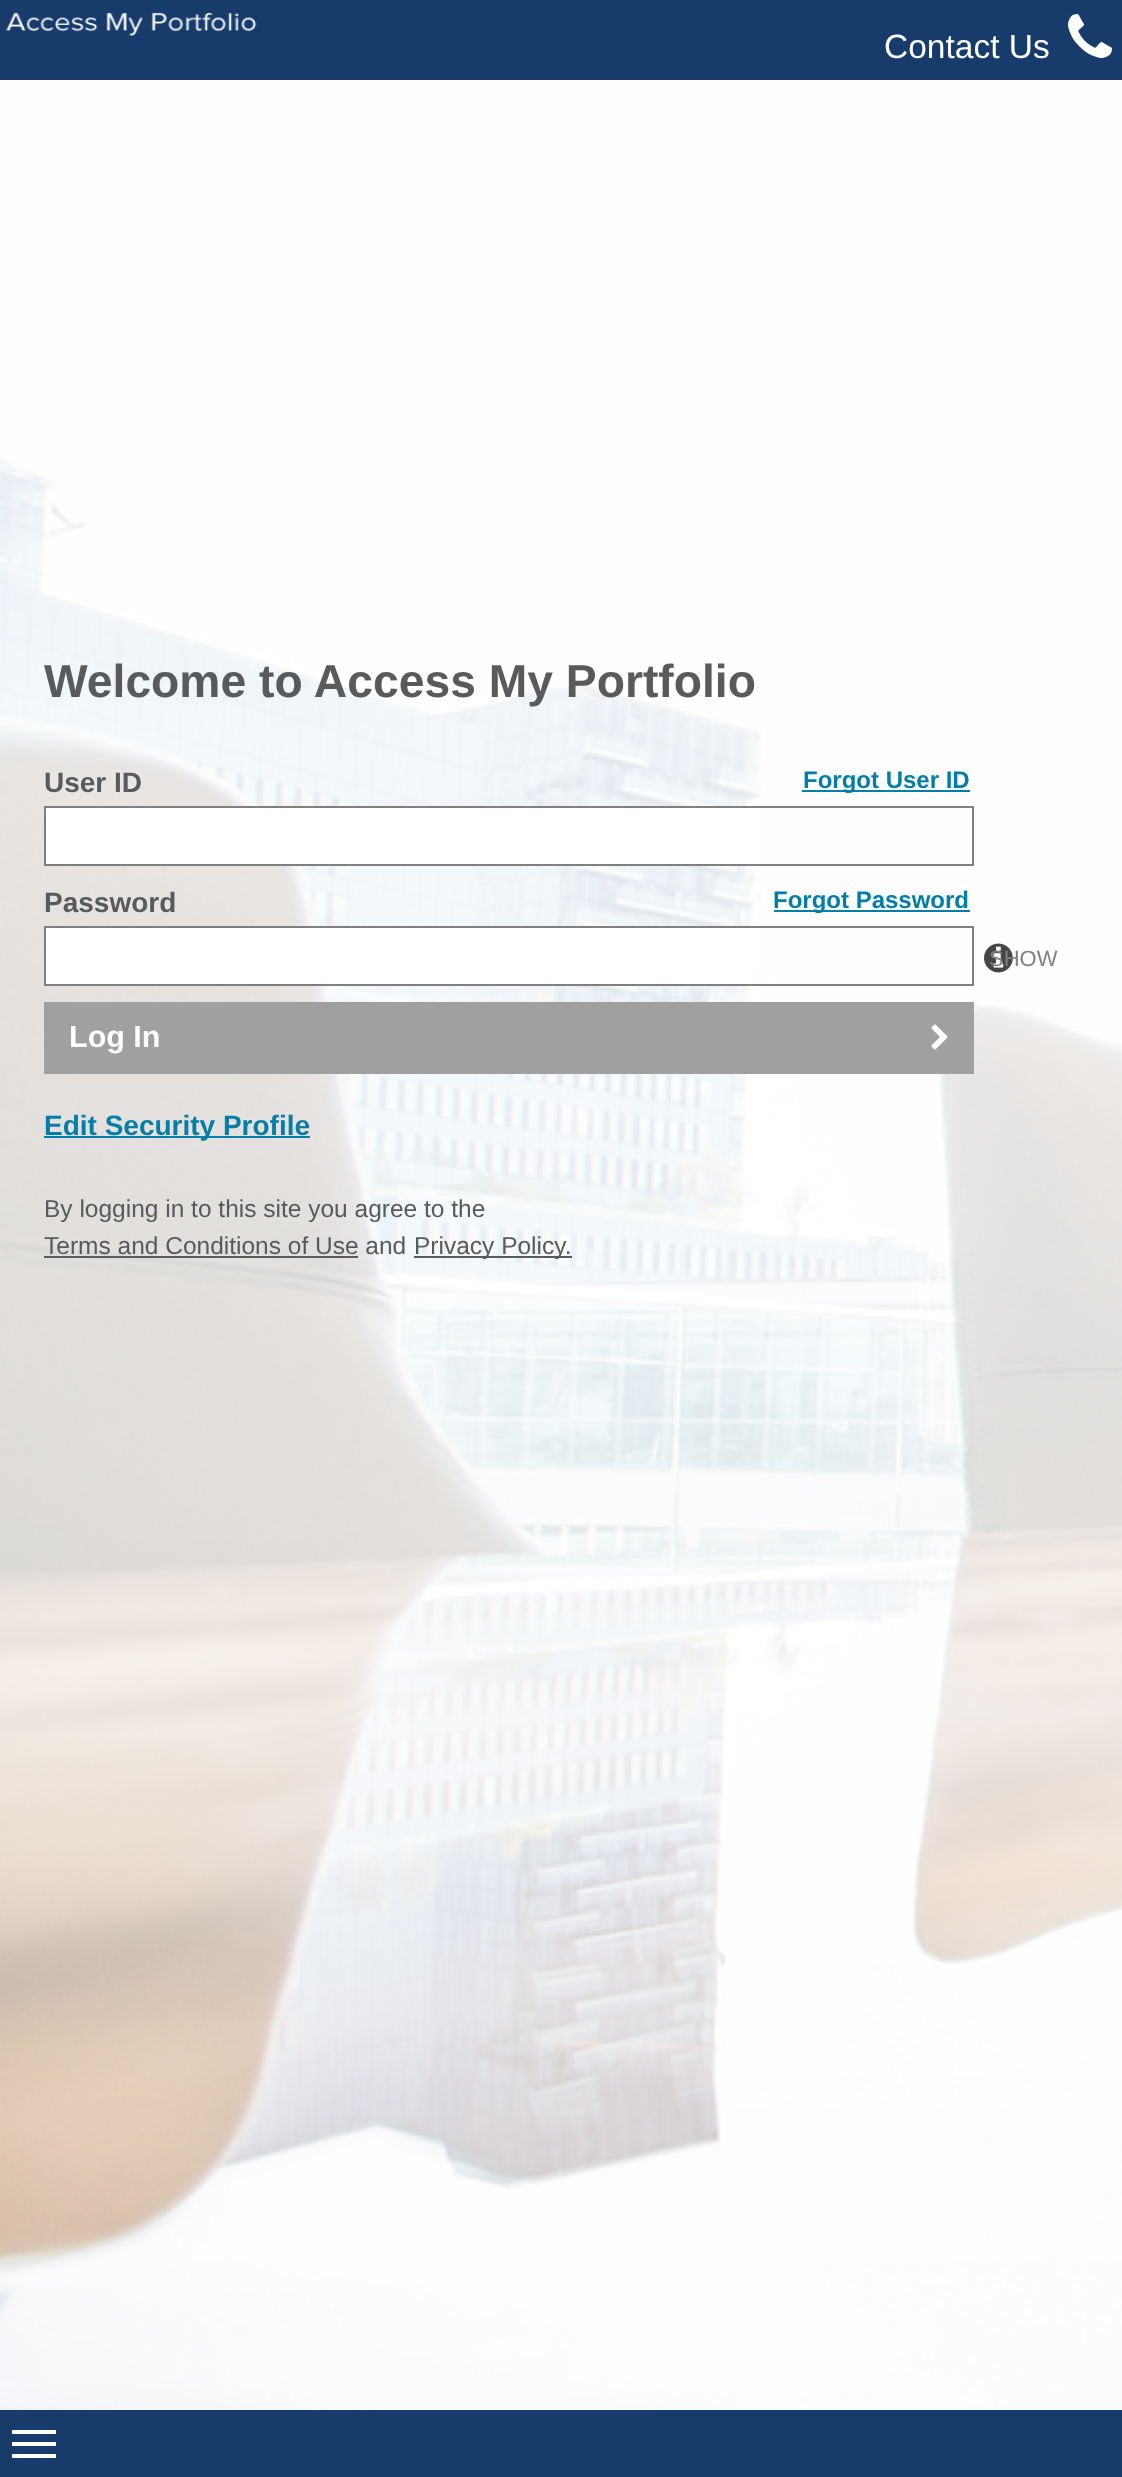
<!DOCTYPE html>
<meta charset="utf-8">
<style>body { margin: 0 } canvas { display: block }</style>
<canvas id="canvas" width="1122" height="2477"></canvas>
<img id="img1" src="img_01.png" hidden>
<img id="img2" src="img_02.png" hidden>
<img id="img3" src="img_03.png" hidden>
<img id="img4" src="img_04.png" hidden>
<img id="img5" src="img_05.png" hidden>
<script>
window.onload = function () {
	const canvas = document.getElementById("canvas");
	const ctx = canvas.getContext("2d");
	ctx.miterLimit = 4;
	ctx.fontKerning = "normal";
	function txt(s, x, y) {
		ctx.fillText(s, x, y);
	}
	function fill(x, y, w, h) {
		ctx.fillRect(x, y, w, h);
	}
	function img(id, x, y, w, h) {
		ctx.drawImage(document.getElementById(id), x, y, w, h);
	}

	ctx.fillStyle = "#FFFFFF";
	fill(0, 0, 1122, 2477);
	img("img1", 0, 80, 1122, 2330);
	ctx.fillStyle = "#173B6B";
	fill(0, 0, 1122, 80);
	img("img2", 5, 12, 252, 24);
	img("img3", 1068, 14, 44, 44);
	ctx.fillStyle = "#037EA6";
	fill(802, 790, 168, 2);
	ctx.fillStyle = "#FFFFFF";
	fill(46, 808, 713, 56);
	ctx.strokeStyle = "#808080";
	ctx.lineWidth = 2;
	ctx.strokeRect(45, 807, 928, 58);
	ctx.fillStyle = "#037EA6";
	fill(774, 910, 196, 2);
	ctx.fillStyle = "#FFFFFF";
	fill(46, 928, 708, 56);
	ctx.strokeRect(45, 927, 928, 58);
	img("img4", 984, 943, 29, 30);
	ctx.fillStyle = "#A0A0A0";
	fill(44, 1002, 930, 72);
	img("img5", 931, 1024, 17, 26);
	ctx.fillStyle = "#037EA6";
	fill(44, 1136, 266, 2);
	ctx.fillStyle = "#585A5B";
	fill(44, 1256, 314, 2);
	fill(414, 1256, 158, 2);
	ctx.fillStyle = "#173B6B";
	fill(0, 2410, 1122, 67);
	ctx.fillStyle = "#FFFFFF";
	fill(12, 2430, 44, 4);
	fill(12, 2442, 44, 4);
	fill(12, 2454, 44, 4);
	ctx.font = "33.5px Liberation Sans";
	txt("Contact Us", 884, 58);
	ctx.font = "bold 46.25px Liberation Sans";
	ctx.fillStyle = "#585A5B";
	txt("Welcome to Access My Portfolio", 44, 697);
	ctx.font = "bold 28px Liberation Sans";
	txt("User ID", 44, 792);
	ctx.font = "bold 24px Liberation Sans";
	ctx.fillStyle = "#037EA6";
	txt("Forgot User ID", 803, 788);
	ctx.font = "bold 28px Liberation Sans";
	ctx.fillStyle = "#585A5B";
	txt("Password", 44, 912);
	ctx.font = "bold 24px Liberation Sans";
	ctx.fillStyle = "#037EA6";
	txt("Forgot Password", 773, 908);
	ctx.font = "22px Liberation Sans";
	ctx.fillStyle = "#808080";
	txt("SHOW", 989, 966);
	ctx.font = "bold 30.5px Liberation Sans";
	ctx.fillStyle = "#FFFFFF";
	txt("Log In", 69, 1047);
	ctx.font = "bold 28px Liberation Sans";
	ctx.fillStyle = "#037EA6";
	txt("Edit Security Profile", 44, 1135);
	ctx.font = "24.5px Liberation Sans";
	ctx.fillStyle = "#585A5B";
	txt("By logging in to this site you agree to the", 44, 1217);
	txt("Terms and Conditions of Use and", 44, 1254);
	txt("Privacy Policy.", 414, 1254);
};
</script>
